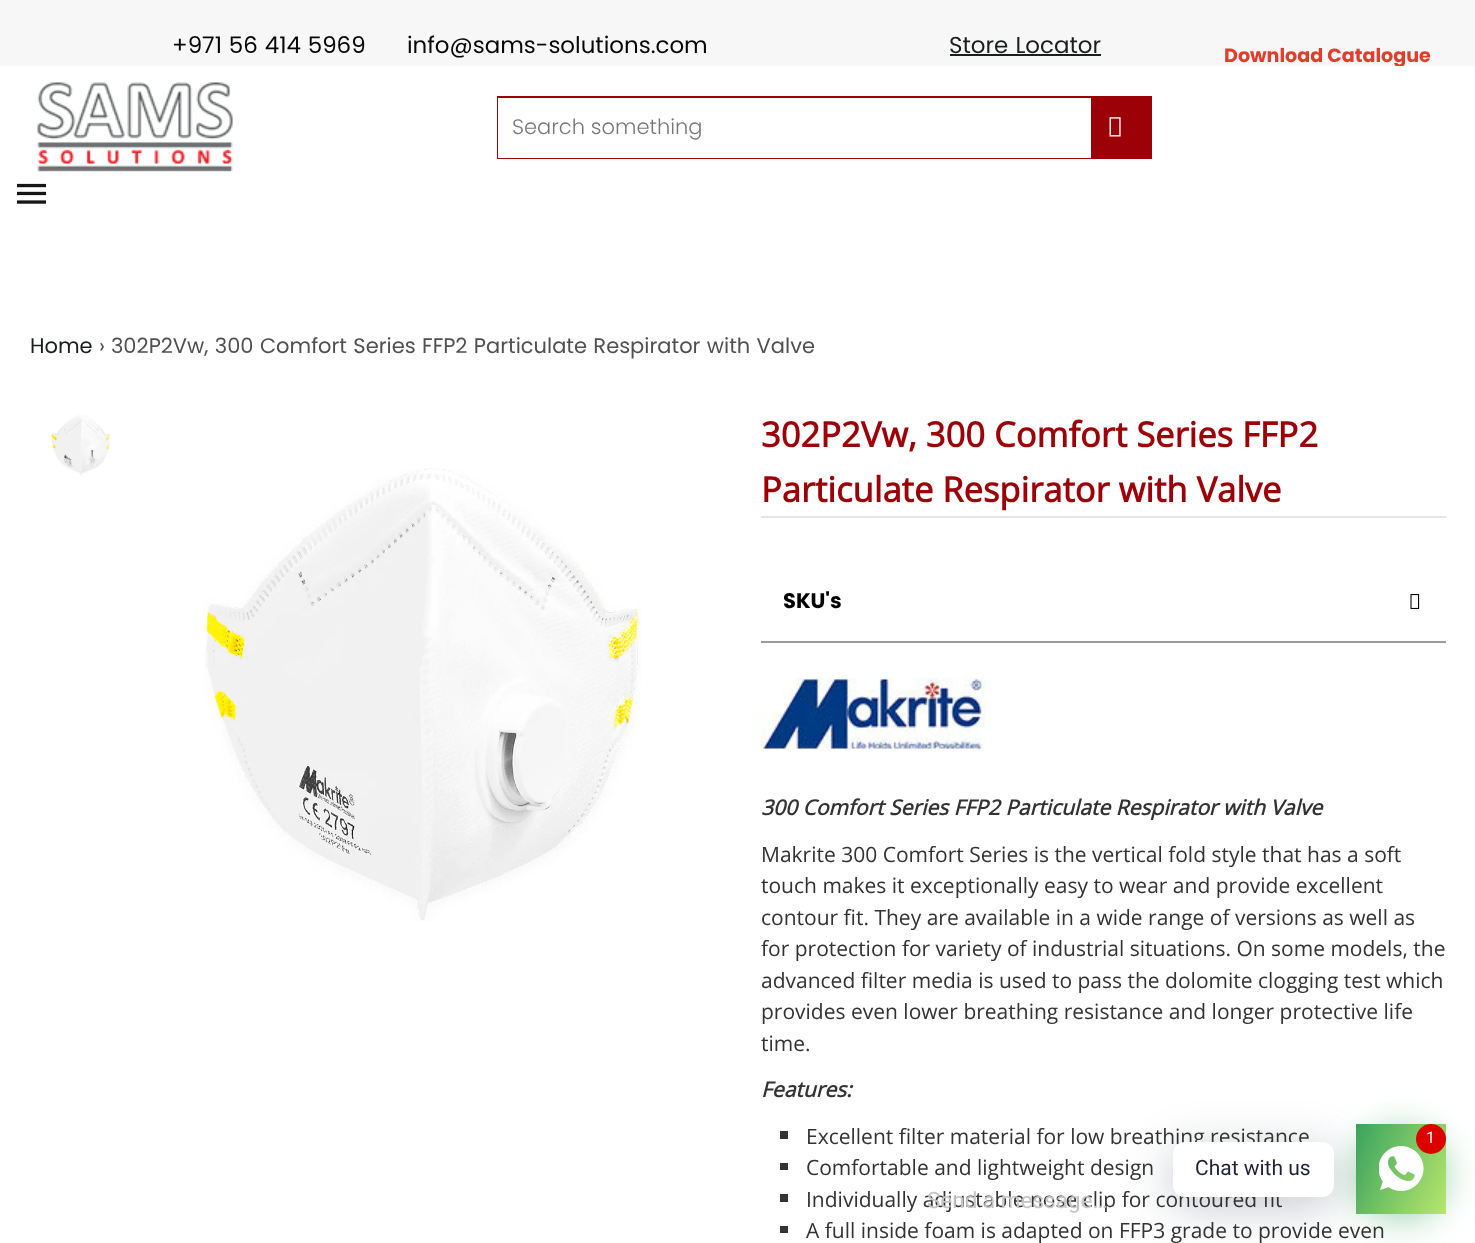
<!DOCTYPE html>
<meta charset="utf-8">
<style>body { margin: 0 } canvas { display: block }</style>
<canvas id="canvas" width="1475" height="1243"></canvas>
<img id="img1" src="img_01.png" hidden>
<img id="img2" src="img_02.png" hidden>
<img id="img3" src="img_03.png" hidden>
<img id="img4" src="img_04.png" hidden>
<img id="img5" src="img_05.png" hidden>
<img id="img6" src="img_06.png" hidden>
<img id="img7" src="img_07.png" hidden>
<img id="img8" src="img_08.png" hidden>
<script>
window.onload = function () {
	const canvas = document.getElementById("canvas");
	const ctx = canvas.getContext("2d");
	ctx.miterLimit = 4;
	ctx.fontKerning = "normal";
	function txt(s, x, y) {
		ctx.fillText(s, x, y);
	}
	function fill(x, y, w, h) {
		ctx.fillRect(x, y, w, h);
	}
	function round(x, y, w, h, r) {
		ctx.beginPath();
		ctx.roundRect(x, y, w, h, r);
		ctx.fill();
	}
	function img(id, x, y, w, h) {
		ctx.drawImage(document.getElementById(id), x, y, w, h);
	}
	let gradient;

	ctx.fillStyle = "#FFFFFF";
	fill(0, 0, 1475, 1243);
	ctx.fillStyle = "#F7F7F7";
	fill(0, 0, 1475, 66);
	ctx.fillStyle = "#1C1D1D";
	fill(950, 54, 151, 2);
	img("img1", 37, 82, 196, 90);
	ctx.strokeStyle = "#9D0108";
	ctx.lineWidth = 2;
	ctx.strokeRect(498, 97, 653, 61);
	ctx.fillStyle = "#FFFFFF";
	fill(498, 98, 593, 60);
	ctx.fillStyle = "#9D0108";
	fill(1091, 98, 59, 59);
	img("img2", 1109, 117, 12, 20);
	img("img3", 16, 183, 31, 21);
	img("img4", 51, 415, 59, 61);
	img("img5", 204, 468, 437, 454);
	ctx.fillStyle = "#E5E5E5";
	fill(761, 516, 685, 2);
	ctx.fillStyle = "#9B9B9B";
	fill(761, 641, 685, 2);
	img("img6", 1410, 594, 10, 15);
	img("img7", 760, 677, 226, 74);
	ctx.fillStyle = "#333333";
	fill(780, 1131, 8, 8);
	fill(780, 1163, 8, 7);
	fill(780, 1194, 8, 8);
	fill(780, 1226, 8, 7);
	ctx.fillStyle = "rgba(58, 165, 96, 0.5)";
	ctx.filter = "blur(18px)";
	ctx.beginPath();
	ctx.roundRect(1356, 1130, 90, 90, 45);
	ctx.fill();
	ctx.filter = "none";
	gradient = ctx.createLinearGradient(1347, 1143, 1455, 1194);
	gradient.addColorStop(0, "#3AA560");
	gradient.addColorStop(1, "#B7E66C");
	ctx.fillStyle = gradient;
	fill(1356, 1124, 90, 90);
	ctx.fillStyle = "rgba(0, 18, 46, 0.24)";
	ctx.filter = "blur(24px)";
	ctx.beginPath();
	ctx.roundRect(1173, 1151, 161, 55, 12);
	ctx.fill();
	ctx.filter = "none";
	img("img8", 1379, 1146, 45, 45);
	ctx.fillStyle = "#DD0000";
	ctx.beginPath();
	ctx.arc(1431, 1139, 15, 0, Math.PI * 2);
	ctx.fill();
	ctx.wordSpacing = "0.75px";
	ctx.font = "22.95px Poppins";
	ctx.fillStyle = "#070707";
	txt("+971 56 414 5969      info@sams-solutions.com", 172, 53);
	ctx.wordSpacing = "1px";
	ctx.fillStyle = "#1C1D1D";
	txt("Store Locator", 949, 53);
	ctx.wordSpacing = "0px";
	ctx.font = "bold 19.1px Poppins";
	ctx.fillStyle = "#E03E2D";
	txt("Download Catalogue", 1224, 62);
	ctx.fillStyle = "#FFFFFF";
	fill(1395, 66, 9, 2);
	ctx.font = "300 21px Poppins";
	ctx.fillStyle = "#777777";
	txt("Search something", 512, 134);
	ctx.font = "21px Poppins";
	ctx.fillStyle = "#1C1D1D";
	txt("Home", 30, 353);
	ctx.fillStyle = "#505050";
	txt("›", 99, 353);
	ctx.wordSpacing = "0.75px";
	txt("302P2Vw, 300 Comfort Series FFP2 Particulate Respirator with Valve", 111, 353);
	ctx.wordSpacing = "0px";
	ctx.font = "bold 34.5px Open Sans";
	ctx.fillStyle = "#9D0108";
	txt("302P2Vw, 300 Comfort Series FFP2", 761, 447);
	txt("Particulate Respirator with Valve", 761, 502);
	ctx.font = "bold 21px Poppins";
	ctx.fillStyle = "#000000";
	txt("SKU's", 783, 608);
	ctx.font = "italic bold 21px Open Sans";
	ctx.fillStyle = "#333333";
	txt("300 Comfort Series FFP2 Particulate Respirator with Valve", 761, 815);
	ctx.font = "21px Open Sans";
	txt("Makrite 300 Comfort Series is the vertical fold style that has a soft", 761, 862);
	txt("touch makes it exceptionally easy to wear and provide excellent", 761, 893);
	txt("contour fit. They are available in a wide range of versions as well as", 761, 925);
	txt("for protection for variety of industrial situations. On some models, the", 761, 956);
	txt("advanced filter media is used to pass the dolomite clogging test which", 761, 988);
	txt("provides even lower breathing resistance and longer protective life", 761, 1019);
	txt("time.", 761, 1051);
	ctx.font = "italic bold 21px Open Sans";
	txt("Features:", 761, 1097);
	ctx.font = "21px Open Sans";
	txt("Excellent filter material for low breathing resistance", 806, 1144);
	txt("Comfortable and lightweight design", 806, 1175);
	txt("Individually adjustable nose clip for contoured fit", 806, 1207);
	txt("A full inside foam is adapted on FFP3 grade to provide even", 806, 1238);
	ctx.font = "16px Roboto";
	ctx.fillStyle = "#FFFFFF";
	txt("1", 1426, 1143);
	round(1173, 1142, 161, 55, 12);
	ctx.font = "21px Roboto";
	ctx.fillStyle = "#1E2433";
	txt("Chat with us", 1195, 1175);
	ctx.font = "22.5px Roboto";
	ctx.fillStyle = "#C5C5C5";
	txt("Send a message…", 927, 1208);
};
</script>
